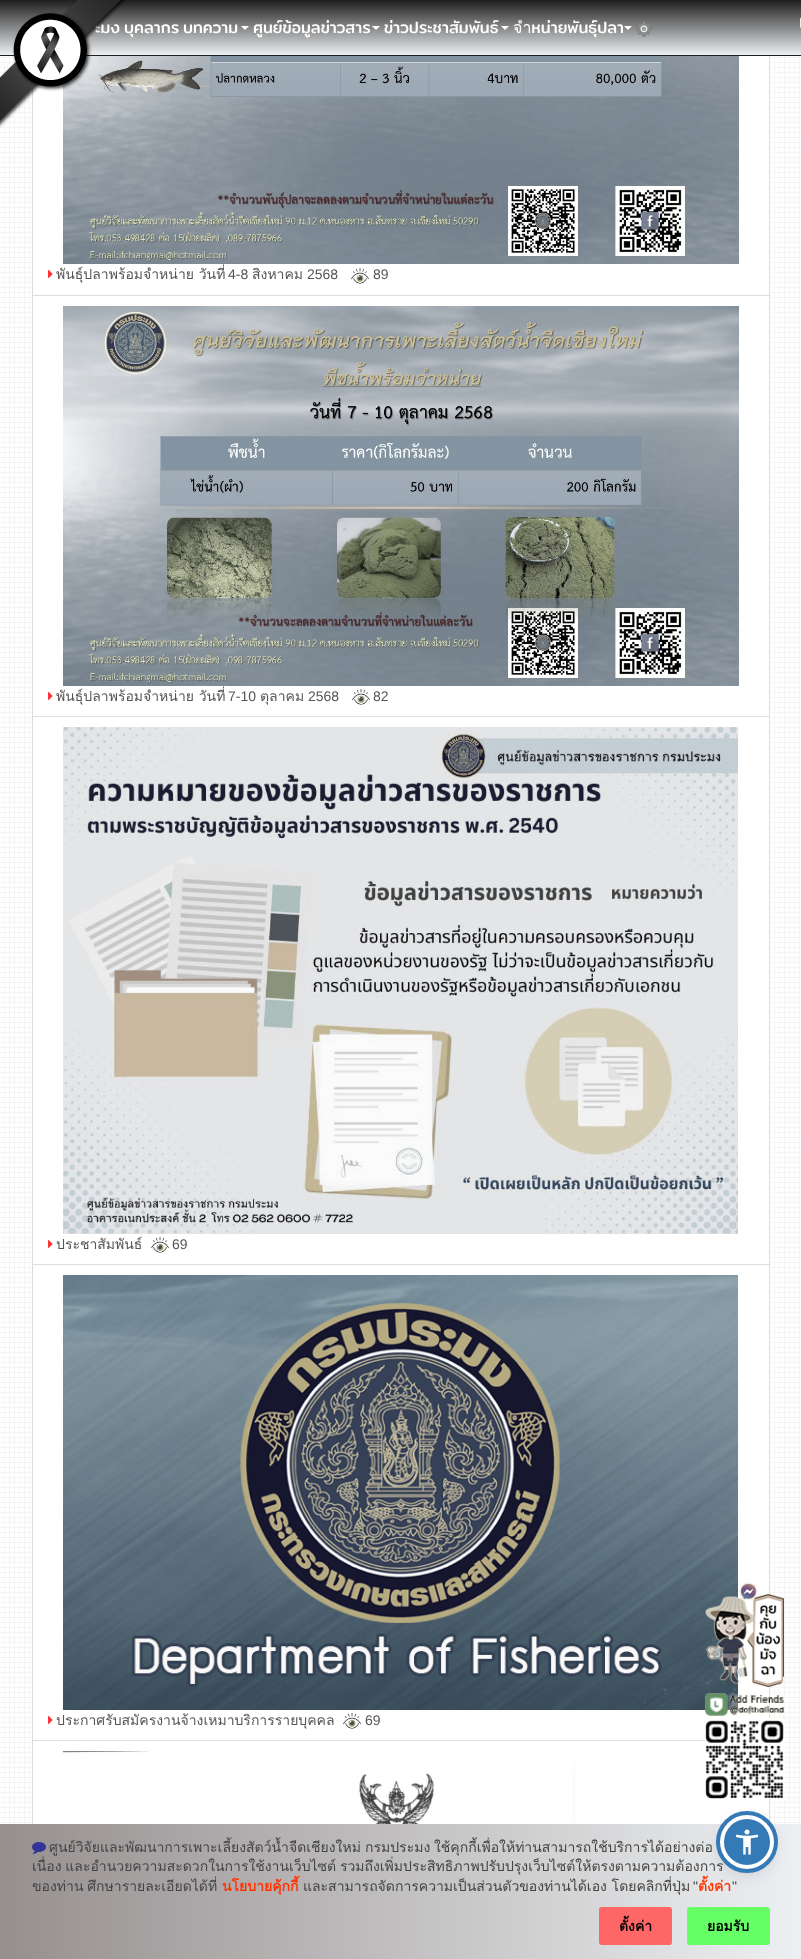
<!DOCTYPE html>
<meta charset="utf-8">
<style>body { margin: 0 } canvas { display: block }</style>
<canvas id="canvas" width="801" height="1959"></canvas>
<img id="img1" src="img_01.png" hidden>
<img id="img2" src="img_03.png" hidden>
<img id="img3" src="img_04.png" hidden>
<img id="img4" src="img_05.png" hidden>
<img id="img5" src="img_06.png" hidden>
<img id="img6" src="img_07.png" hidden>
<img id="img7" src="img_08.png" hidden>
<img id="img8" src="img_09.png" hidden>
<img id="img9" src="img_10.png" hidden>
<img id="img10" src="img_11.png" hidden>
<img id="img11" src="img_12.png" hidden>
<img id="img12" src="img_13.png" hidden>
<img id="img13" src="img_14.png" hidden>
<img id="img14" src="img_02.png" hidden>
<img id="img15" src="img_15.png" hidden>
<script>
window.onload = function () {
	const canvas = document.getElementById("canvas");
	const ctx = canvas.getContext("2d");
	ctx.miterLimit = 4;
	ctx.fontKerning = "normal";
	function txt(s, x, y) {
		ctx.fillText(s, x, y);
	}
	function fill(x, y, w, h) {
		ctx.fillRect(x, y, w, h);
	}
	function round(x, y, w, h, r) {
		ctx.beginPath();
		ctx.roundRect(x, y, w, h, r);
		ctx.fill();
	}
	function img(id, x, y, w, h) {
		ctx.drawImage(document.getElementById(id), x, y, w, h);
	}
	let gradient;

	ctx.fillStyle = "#FFFFFF";
	fill(0, 0, 801, 1959);
	img("img1", 0, 56, 801, 1768);
	fill(33, 56, 736, 239);
	ctx.strokeStyle = "#DDDDDD";
	ctx.strokeRect(32.5, -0.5, 737, 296);
	gradient = ctx.createLinearGradient(401, 0, 401, 55);
	gradient.addColorStop(0, "#1F1E1E");
	gradient.addColorStop(1, "#EDF0F2");
	ctx.fillStyle = gradient;
	fill(0, 0, 801, 55);
	gradient = ctx.createLinearGradient(401, 55, 401, 110);
	gradient.addColorStop(0, "#1F1E1E");
	gradient.addColorStop(1, "#EDF0F2");
	ctx.fillStyle = gradient;
	fill(0, 55, 801, 1);
	ctx.fillStyle = "#FFFFFF";
	ctx.beginPath();
	ctx.moveTo(372, 26);
	ctx.lineTo(380, 26);
	ctx.lineTo(376, 30);
	ctx.closePath();
	ctx.fill();
	ctx.beginPath();
	ctx.moveTo(501, 26);
	ctx.lineTo(509, 26);
	ctx.lineTo(505, 30);
	ctx.closePath();
	ctx.fill();
	ctx.beginPath();
	ctx.moveTo(624, 26);
	ctx.lineTo(632, 26);
	ctx.lineTo(628, 30);
	ctx.closePath();
	ctx.fill();
	img("img2", 636, 21, 16, 16);
	img("img3", 800, 17, 1, 11);
	ctx.beginPath();
	ctx.moveTo(241, 26);
	ctx.lineTo(249, 26);
	ctx.lineTo(245, 30);
	ctx.closePath();
	ctx.fill();
	ctx.beginPath();
	ctx.rect(32.5, 295.5, 737, 421);
	ctx.fill();
	ctx.stroke();
	ctx.beginPath();
	ctx.rect(32.5, 716.5, 737, 548);
	ctx.fill();
	ctx.stroke();
	ctx.beginPath();
	ctx.rect(32.5, 1264.5, 737, 476);
	ctx.fill();
	ctx.stroke();
	fill(33, 1741, 736, 83);
	ctx.strokeRect(32.5, 1740.5, 737, 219);
	gradient = ctx.createLinearGradient(0, 1892, 801, 1892);
	gradient.addColorStop(0, "#968F8F");
	gradient.addColorStop(1, "#EDF0F2");
	ctx.fillStyle = gradient;
	fill(0, 1824, 801, 135);
	img("img4", 32, 1842, 14, 12);
	ctx.fillStyle = "#FF6666";
	round(599, 1907, 73, 38, 3);
	ctx.fillStyle = "#66FF66";
	round(687, 1907, 83, 38, 3);
	img("img5", 63, 56, 676, 208);
	img("img6", 351, 268, 18, 16);
	img("img7", 48, 270, 5, 8);
	img("img8", 63, 306, 676, 380);
	img("img6", 352, 689, 18, 16);
	img("img7", 48, 692, 5, 8);
	img("img9", 63, 727, 675, 507);
	img("img7", 48, 1240, 5, 8);
	img("img6", 151, 1237, 18, 16);
	img("img10", 63, 1275, 675, 435);
	img("img7", 48, 1716, 5, 8);
	img("img6", 343, 1713, 18, 16);
	img("img11", 63, 1751, 512, 73);
	img("img12", 705, 1582, 79, 106);
	img("img13", 705, 1693, 80, 106);
	ctx.fillStyle = "rgba(93, 100, 148, 0.2)";
	ctx.filter = "blur(2px)";
	ctx.beginPath();
	ctx.roundRect(720, 1817, 54, 54, 27);
	ctx.fill();
	ctx.filter = "none";
	ctx.fillStyle = "rgba(37, 44, 97, 0.15)";
	ctx.filter = "blur(7.5px)";
	ctx.beginPath();
	ctx.roundRect(720, 1820, 54, 54, 27);
	ctx.fill();
	ctx.filter = "none";
	ctx.font = "16px Mitr";
	ctx.fillStyle = "#FFFFFF";
	txt("ศูนย์ข้อมูลข่าวสาร", 253, 33);
	txt("ข่าวประชาสัมพันธ์", 384, 33);
	txt("จำหน่ายพันธุ์ปลา", 513, 33);
	txt("ะมง", 95, 33);
	txt("บุคลากร", 124, 33);
	img("img14", 0, 0, 126, 128);
	txt("บทความ", 183, 33);
	ctx.font = "14px Loma";
	ctx.fillStyle = "#444444";
	txt("ศูนย์วิจัยและพัฒนาการเพาะเลี้ยงสัตว์น้ำจืดเชียงใหม่", 49, 1852);
	txt("กรมประมง", 365, 1852);
	txt("ใช้คุกกี้เพื่อให้ท่านสามารถใช้บริการได้อย่างต่อ", 434, 1852);
	ctx.wordSpacing = "-1px";
	txt("เนื่อง และอำนวยความสะดวกในการใช้งานเว็บไซต์ รวมถึงเพิ่มประสิทธิภาพปรับปรุงเว็บไซต์ให้ตรงตามความต้องการ", 32, 1871);
	txt("ของท่าน ศึกษารายละเอียดได้ที่", 32, 1891);
	ctx.wordSpacing = "0px";
	ctx.font = "bold 14px Loma";
	ctx.fillStyle = "#FF3300";
	txt("นโยบายคุ้กกี้", 222, 1891);
	ctx.font = "14px Loma";
	ctx.fillStyle = "#444444";
	txt("และสามารถจัดการความเป็นส่วนตัวของท่านได้เอง โดยคลิกที่ปุ่ม", 303, 1891);
	ctx.font = "14px Liberation Sans";
	txt("\"", 693, 1891);
	ctx.font = "bold 14px Loma";
	ctx.fillStyle = "#FF3300";
	txt("ตั้งค่า", 698, 1891);
	ctx.font = "14px Liberation Sans";
	ctx.fillStyle = "#444444";
	txt("\"", 732, 1891);
	ctx.font = "bold 14px Loma";
	ctx.fillStyle = "#000000";
	txt("ตั้งค่า", 619, 1931);
	txt("ยอมรับ", 707, 1931);
	ctx.font = "14px Loma";
	ctx.fillStyle = "#555555";
	txt("พันธุ์ปลาพร้อมจำหน่าย วันที่", 56, 279);
	ctx.font = "14px Liberation Sans";
	txt("4-8", 228, 279);
	ctx.font = "14px Loma";
	txt("สิงหาคม", 252, 279);
	ctx.font = "14px Liberation Sans";
	txt("2568", 307, 279);
	txt("89", 373, 279);
	ctx.font = "14px Loma";
	txt("พันธุ์ปลาพร้อมจำหน่าย วันที่", 56, 701);
	ctx.font = "14px Liberation Sans";
	txt("7-10", 228, 701);
	txt("2568", 308, 701);
	txt("82", 373, 701);
	ctx.font = "14px Loma";
	txt("ตุลาคม", 260, 701);
	txt("ประชาสัมพันธ์", 56, 1249);
	ctx.font = "14px Liberation Sans";
	txt("69", 172, 1249);
	ctx.font = "14px Loma";
	txt("ประกาศรับสมัครงานจ้างเหมาบริการรายบุคคล", 56, 1725);
	ctx.font = "14px Liberation Sans";
	txt("69", 365, 1725);
	ctx.fillStyle = "#337AB7";
	ctx.beginPath();
	ctx.arc(747, 1842, 25, 0, Math.PI * 2);
	ctx.fill();
	ctx.strokeStyle = "#FFFFFF";
	ctx.lineWidth = 4;
	ctx.stroke();
	ctx.beginPath();
	ctx.arc(747, 1842, 29, 0, Math.PI * 2);
	ctx.strokeStyle = "#337AB7";
	ctx.stroke();
	img("img15", 735, 1829, 24, 26);
};
</script>
